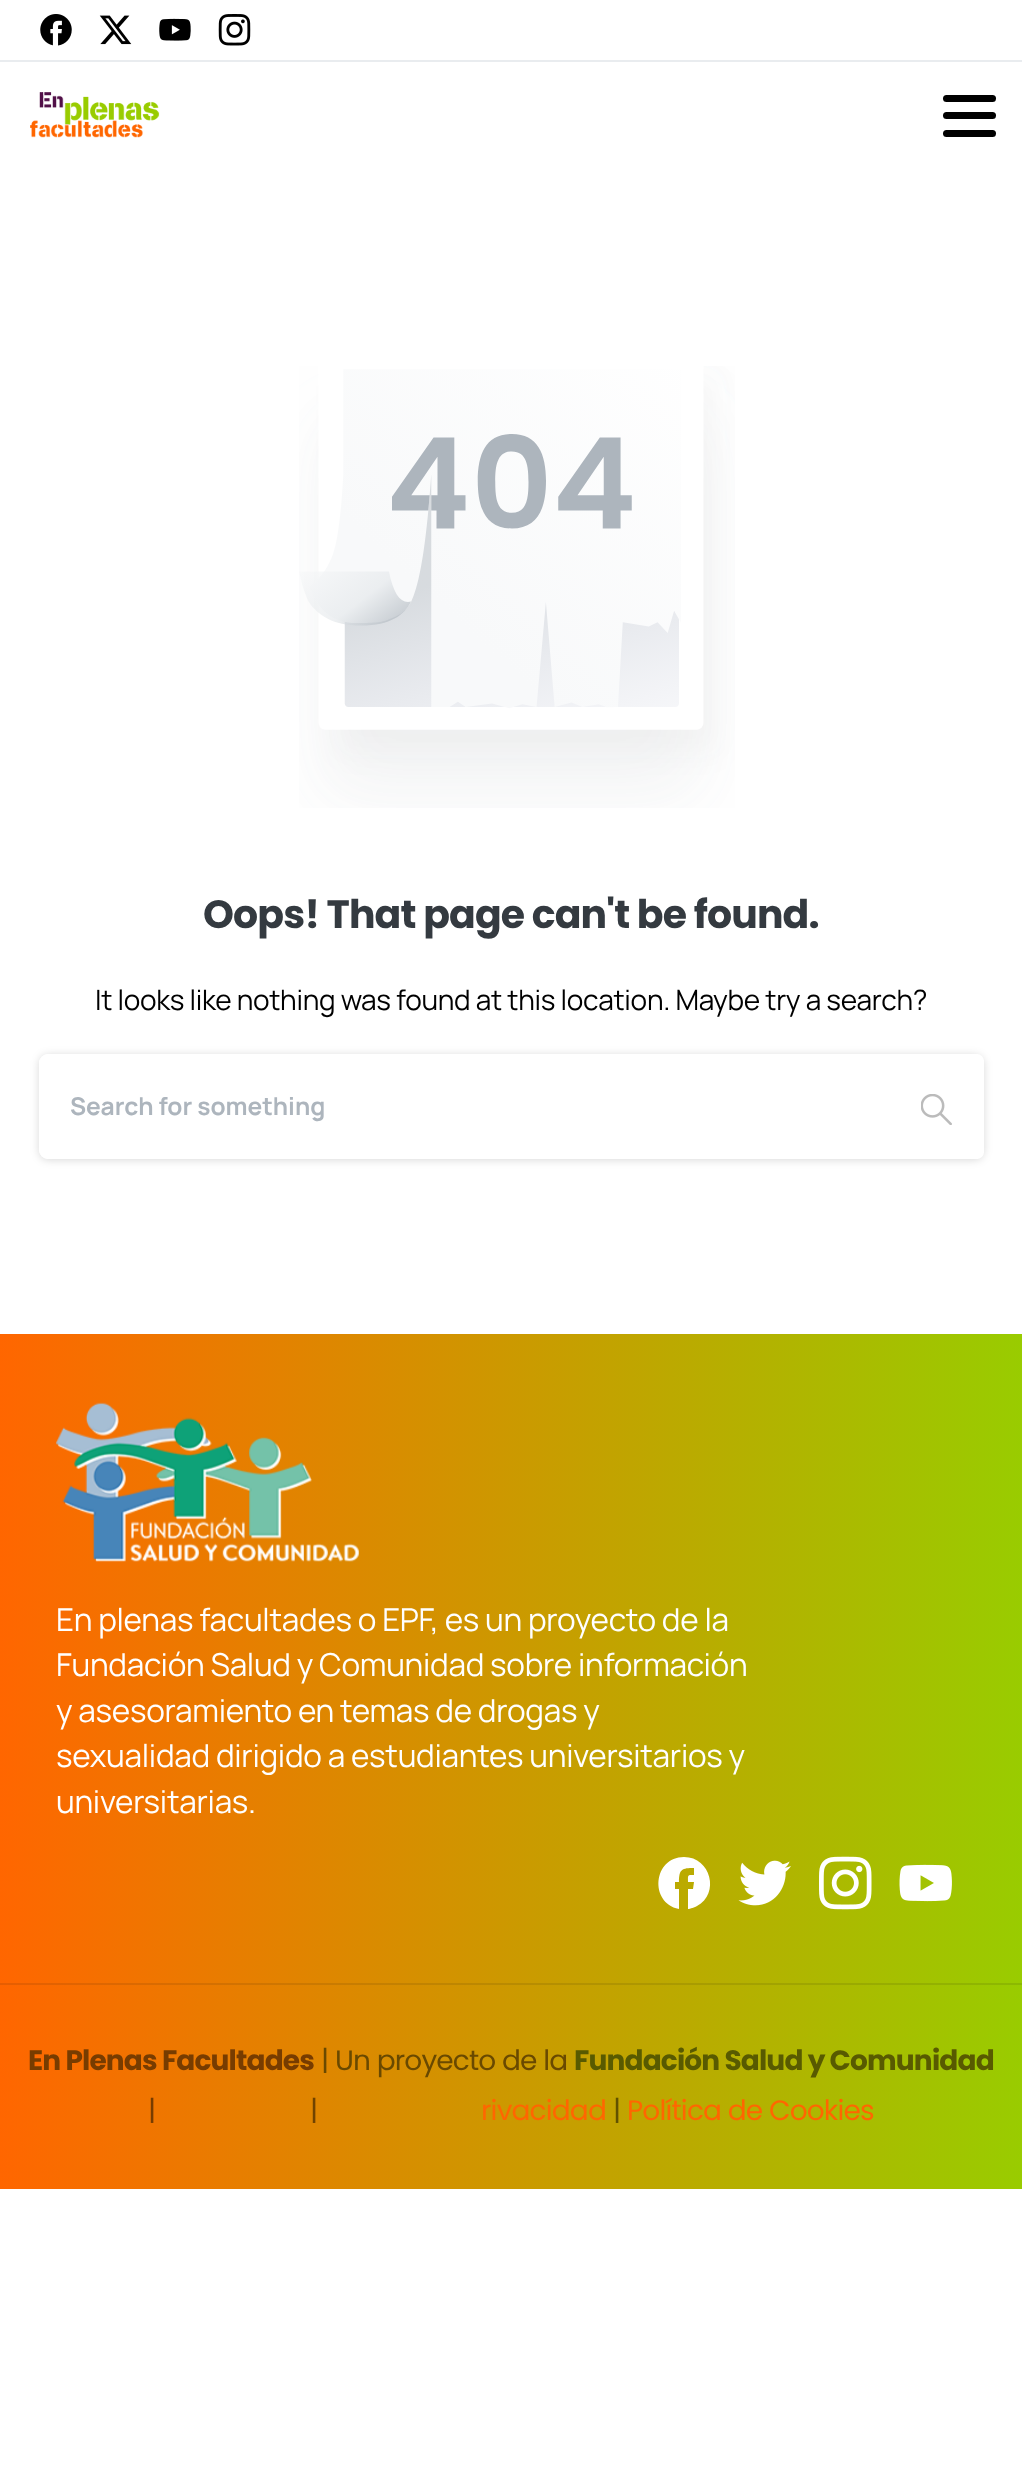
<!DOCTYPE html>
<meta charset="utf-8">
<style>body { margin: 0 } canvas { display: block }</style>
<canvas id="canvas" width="1022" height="2482"></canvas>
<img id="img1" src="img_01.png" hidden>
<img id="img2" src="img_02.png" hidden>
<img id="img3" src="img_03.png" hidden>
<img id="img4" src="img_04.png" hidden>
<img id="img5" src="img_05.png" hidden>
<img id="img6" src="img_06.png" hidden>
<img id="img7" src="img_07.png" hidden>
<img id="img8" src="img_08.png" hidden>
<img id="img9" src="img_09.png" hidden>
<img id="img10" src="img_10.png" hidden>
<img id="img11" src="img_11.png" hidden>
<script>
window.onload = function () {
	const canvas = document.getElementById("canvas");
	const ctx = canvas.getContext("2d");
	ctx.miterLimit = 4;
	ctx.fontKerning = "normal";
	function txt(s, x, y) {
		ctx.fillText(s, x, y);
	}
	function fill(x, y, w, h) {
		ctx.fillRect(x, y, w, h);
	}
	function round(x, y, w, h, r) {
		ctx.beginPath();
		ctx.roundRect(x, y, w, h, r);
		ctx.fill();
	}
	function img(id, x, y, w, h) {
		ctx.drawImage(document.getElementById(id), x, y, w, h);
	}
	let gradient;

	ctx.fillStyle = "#FFFFFF";
	fill(0, 0, 1022, 2482);
	img("img1", 40, 14, 32, 32);
	img("img2", 99, 15, 33, 30);
	img("img3", 159, 18, 32, 23);
	img("img4", 218, 14, 33, 32);
	ctx.fillStyle = "#E9ECEF";
	fill(0, 60, 1022, 2);
	img("img5", 30, 92, 130, 46);
	ctx.fillStyle = "#000000";
	round(943, 95, 53, 7, 3.5);
	round(943, 112, 53, 7, 3.5);
	round(943, 130, 53, 7, 3.5);
	img("img6", 299, 366, 436, 442);
	ctx.fillStyle = "rgba(0, 0, 0, 0.15)";
	ctx.filter = "blur(4.5px)";
	ctx.beginPath();
	ctx.roundRect(39, 1055, 945, 105, 9);
	ctx.fill();
	ctx.filter = "none";
	ctx.fillStyle = "#FFFFFF";
	round(39, 1054, 945, 105, 9);
	round(39, 1054, 850, 105, 9);
	ctx.beginPath();
	ctx.roundRect(889, 1054, 95, 105, [0, 7, 7, 0]);
	ctx.fill();
	img("img7", 921, 1094, 31, 31);
	gradient = ctx.createLinearGradient(0, 1242, 1022, 1242);
	gradient.addColorStop(0, "#FF6600");
	gradient.addColorStop(1, "#99CC00");
	ctx.fillStyle = gradient;
	fill(0, 1334, 1022, 855);
	gradient = ctx.createLinearGradient(0, 1242, 1022, 1242);
	gradient.addColorStop(0, "#E75D01");
	gradient.addColorStop(1, "#8BB901");
	ctx.fillStyle = gradient;
	fill(0, 1983, 1022, 2);
	img("img8", 56, 1402, 303, 160);
	ctx.fillStyle = "#FFFFFF";
	ctx.beginPath();
	ctx.moveTo(684, 1857);
	ctx.bezierCurveTo(711, 1857, 720, 1894, 697, 1906);
	ctx.bezierCurveTo(695, 1907, 690, 1909, 688, 1909);
	ctx.lineTo(688, 1889);
	ctx.lineTo(693, 1889);
	ctx.lineTo(694, 1882);
	ctx.lineTo(688, 1882);
	ctx.bezierCurveTo(688, 1875, 687, 1875, 694, 1875);
	ctx.lineTo(694, 1868);
	ctx.bezierCurveTo(682, 1868, 679, 1869, 679, 1882);
	ctx.lineTo(675, 1882);
	ctx.lineTo(675, 1889);
	ctx.lineTo(679, 1889);
	ctx.lineTo(679, 1909);
	ctx.bezierCurveTo(649, 1903, 653, 1857, 684, 1857);
	ctx.closePath();
	ctx.fill("evenodd");
	img("img9", 738, 1860, 53, 46);
	img("img10", 819, 1856, 53, 54);
	img("img11", 899, 1864, 53, 38);
	ctx.letterSpacing = "-0.85px";
	ctx.font = "bold 39.4px Poppins";
	ctx.fillStyle = "#343A40";
	txt("Oops! That page can't be found.", 203, 928);
	ctx.letterSpacing = "-0.28px";
	ctx.font = "28px Manrope";
	ctx.fillStyle = "#000000";
	txt("It looks like nothing was found at this location. Maybe try a search?", 95, 1010);
	ctx.letterSpacing = "0px";
	ctx.font = "bold 24.5px Manrope";
	ctx.fillStyle = "#ADB5BD";
	txt("Search for something", 70, 1115);
	ctx.letterSpacing = "-0.28px";
	ctx.font = "31.5px Manrope";
	ctx.fillStyle = "#FFFFFF";
	txt("En plenas facultades o EPF, es un proyecto de la", 56, 1631);
	txt("Fundación Salud y Comunidad sobre información", 56, 1676);
	txt("y asesoramiento en temas de drogas y", 56, 1722);
	txt("sexualidad dirigido a estudiantes universitarios y", 56, 1767);
	txt("universitarias.", 56, 1813);
	ctx.letterSpacing = "-0.85px";
	ctx.font = "bold 28px Poppins";
	ctx.fillStyle = "#773C00";
	txt("En Plenas Facultades", 28, 2070);
	ctx.font = "28px Poppins";
	ctx.fillStyle = "#694900";
	txt("| Un proyecto de la", 321, 2070);
	ctx.font = "bold 28px Poppins";
	ctx.fillStyle = "#585A00";
	txt("Fundación Salud y Comunidad", 574, 2070);
	ctx.font = "28px Poppins";
	ctx.fillStyle = "#773C00";
	txt("|", 148, 2120);
	ctx.fillStyle = "#704300";
	txt("|", 310, 2120);
	ctx.fillStyle = "#FF6600";
	txt("rivacidad", 481, 2120);
	ctx.fillStyle = "#615200";
	txt("|", 613, 2120);
	ctx.fillStyle = "#FF6600";
	txt("Política de Cookies", 627, 2120);
};
</script>
